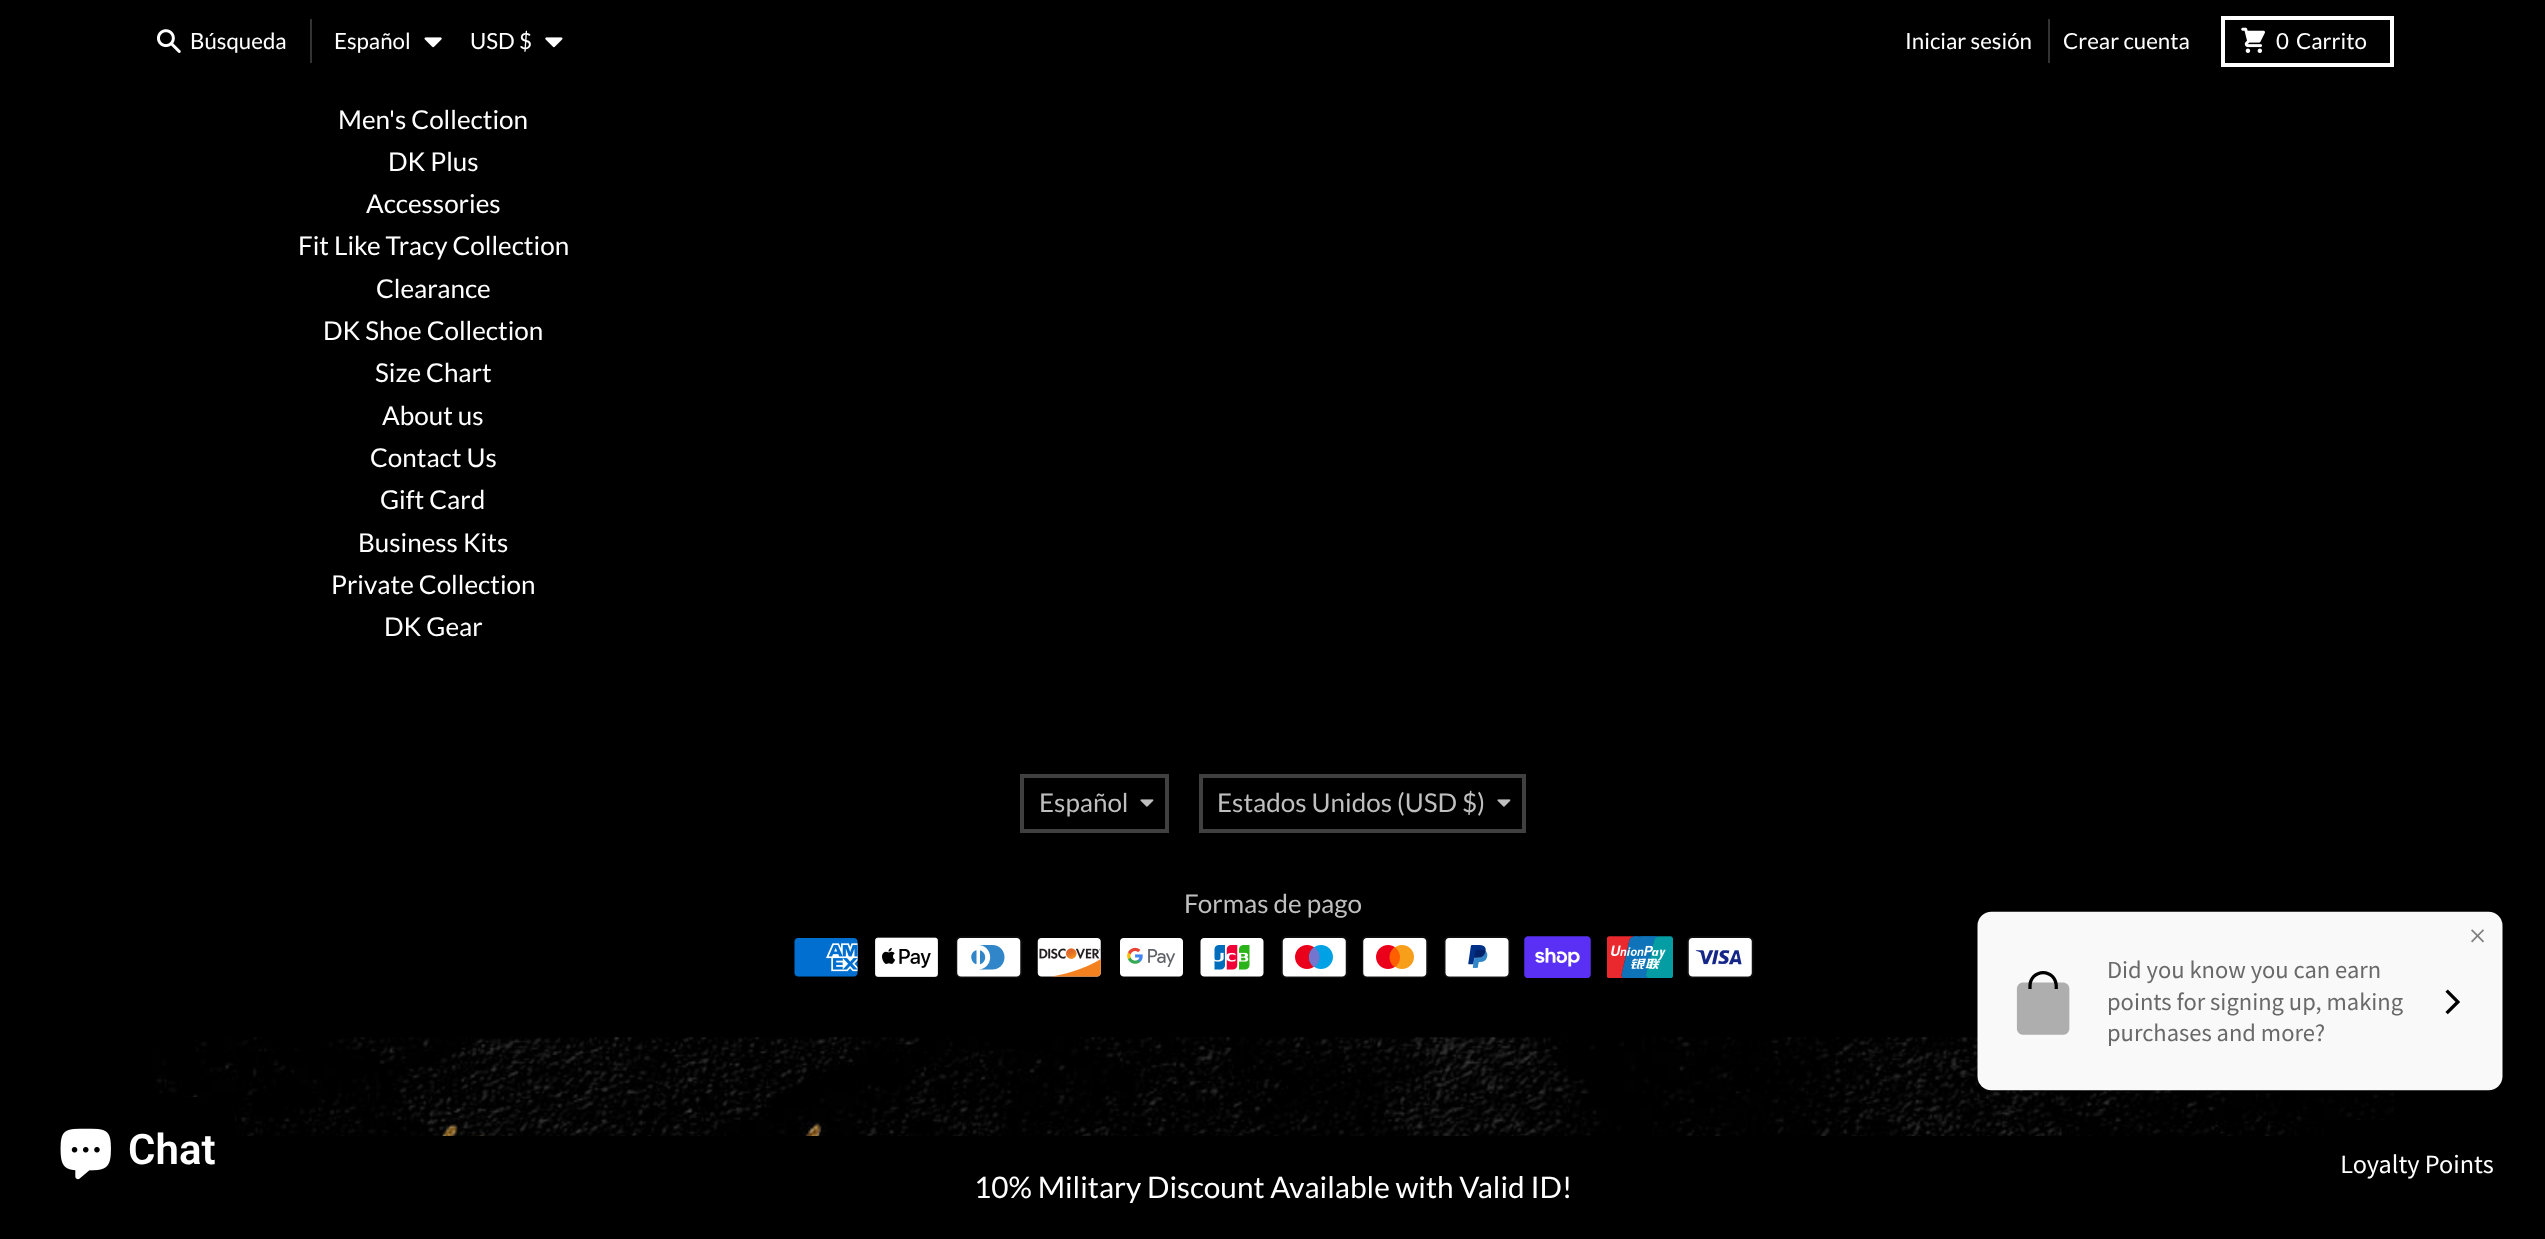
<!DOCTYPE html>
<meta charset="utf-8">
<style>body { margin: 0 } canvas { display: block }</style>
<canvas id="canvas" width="2545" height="1239"></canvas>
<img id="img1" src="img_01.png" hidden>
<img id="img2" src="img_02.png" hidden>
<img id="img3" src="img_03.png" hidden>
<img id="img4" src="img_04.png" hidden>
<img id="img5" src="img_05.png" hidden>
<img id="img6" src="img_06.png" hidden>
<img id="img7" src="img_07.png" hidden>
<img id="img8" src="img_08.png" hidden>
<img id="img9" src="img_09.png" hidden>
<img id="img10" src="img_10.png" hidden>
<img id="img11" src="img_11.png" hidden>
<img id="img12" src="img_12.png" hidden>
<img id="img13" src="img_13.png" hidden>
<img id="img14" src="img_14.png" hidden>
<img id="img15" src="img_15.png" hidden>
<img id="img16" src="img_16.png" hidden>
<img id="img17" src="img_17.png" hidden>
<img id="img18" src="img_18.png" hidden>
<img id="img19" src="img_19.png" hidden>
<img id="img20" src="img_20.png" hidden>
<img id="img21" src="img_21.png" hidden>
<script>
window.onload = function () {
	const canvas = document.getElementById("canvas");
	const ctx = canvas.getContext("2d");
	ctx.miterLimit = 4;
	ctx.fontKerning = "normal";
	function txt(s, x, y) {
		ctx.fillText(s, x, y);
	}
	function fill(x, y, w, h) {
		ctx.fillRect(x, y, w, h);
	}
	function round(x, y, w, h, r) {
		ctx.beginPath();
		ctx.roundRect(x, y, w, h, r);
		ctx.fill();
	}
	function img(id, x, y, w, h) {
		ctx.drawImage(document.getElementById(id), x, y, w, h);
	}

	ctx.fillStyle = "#000000";
	fill(0, 0, 2545, 1239);
	img("img1", 157, 29, 24, 24);
	ctx.fillStyle = "#333333";
	fill(310, 19, 2, 44);
	img("img2", 424, 37, 18, 11);
	img("img3", 545, 37, 18, 11);
	fill(2048, 19, 2, 44);
	ctx.strokeStyle = "#FFFFFF";
	ctx.lineWidth = 4;
	ctx.strokeRect(2223, 18, 169, 47);
	img("img4", 2241, 27, 24, 26);
	ctx.strokeStyle = "#404040";
	ctx.strokeRect(1022, 776, 145, 55);
	img("img5", 1140, 799, 14, 8);
	ctx.strokeRect(1201, 776, 323, 55);
	img("img5", 1497, 799, 14, 8);
	img("img6", 794, 938, 64, 39);
	img("img7", 875, 937, 63, 40);
	img("img8", 956, 936, 66, 42);
	img("img9", 1037, 938, 64, 39);
	img("img10", 1120, 938, 63, 39);
	img("img11", 1200, 938, 64, 39);
	img("img12", 1281, 936, 67, 42);
	img("img13", 1362, 936, 66, 42);
	img("img14", 1444, 936, 66, 42);
	img("img15", 1524, 936, 67, 42);
	img("img16", 1607, 936, 66, 42);
	img("img17", 1687, 936, 67, 42);
	img("img18", 154, 1037, 2240, 99);
	img("img19", 1977, 911, 526, 181);
	ctx.fillStyle = "#000000";
	round(39, 1097, 197, 105, 28);
	img("img20", 60, 1128, 51, 52);
	img("img21", 2324, 1120, 169, 59);
	ctx.font = "22.25px Lato";
	ctx.fillStyle = "#FFFFFF";
	txt("Búsqueda", 190, 49);
	txt("Español", 334, 49);
	txt("USD $", 470, 49);
	txt("Iniciar sesión", 1905, 49);
	txt("Crear cuenta", 2063, 49);
	txt("0", 2276, 49);
	txt("Carrito", 2296, 49);
	ctx.font = "26px Lato";
	txt("Men's Collection", 338, 129);
	txt("DK Plus", 388, 171);
	txt("Accessories", 366, 213);
	txt("Fit Like Tracy Collection", 298, 255);
	txt("Clearance", 376, 298);
	txt("DK Shoe Collection", 323, 340);
	txt("Size Chart", 375, 382);
	txt("About us", 382, 425);
	txt("Contact Us", 370, 467);
	txt("Gift Card", 380, 509);
	txt("Business Kits", 358, 552);
	txt("Private Collection", 331, 594);
	txt("DK Gear", 384, 636);
	ctx.fillStyle = "#BFBFBF";
	txt("Español", 1039, 812);
	txt("Estados Unidos (USD $)", 1217, 812);
	txt("Formas de pago", 1184, 913);
	ctx.font = "600 42px Roboto";
	ctx.fillStyle = "#FFFFFF";
	txt("Chat", 128, 1164);
	ctx.font = "29.75px Lato";
	txt("10% Military Discount Available with Valid ID!", 974, 1198);
};
</script>
